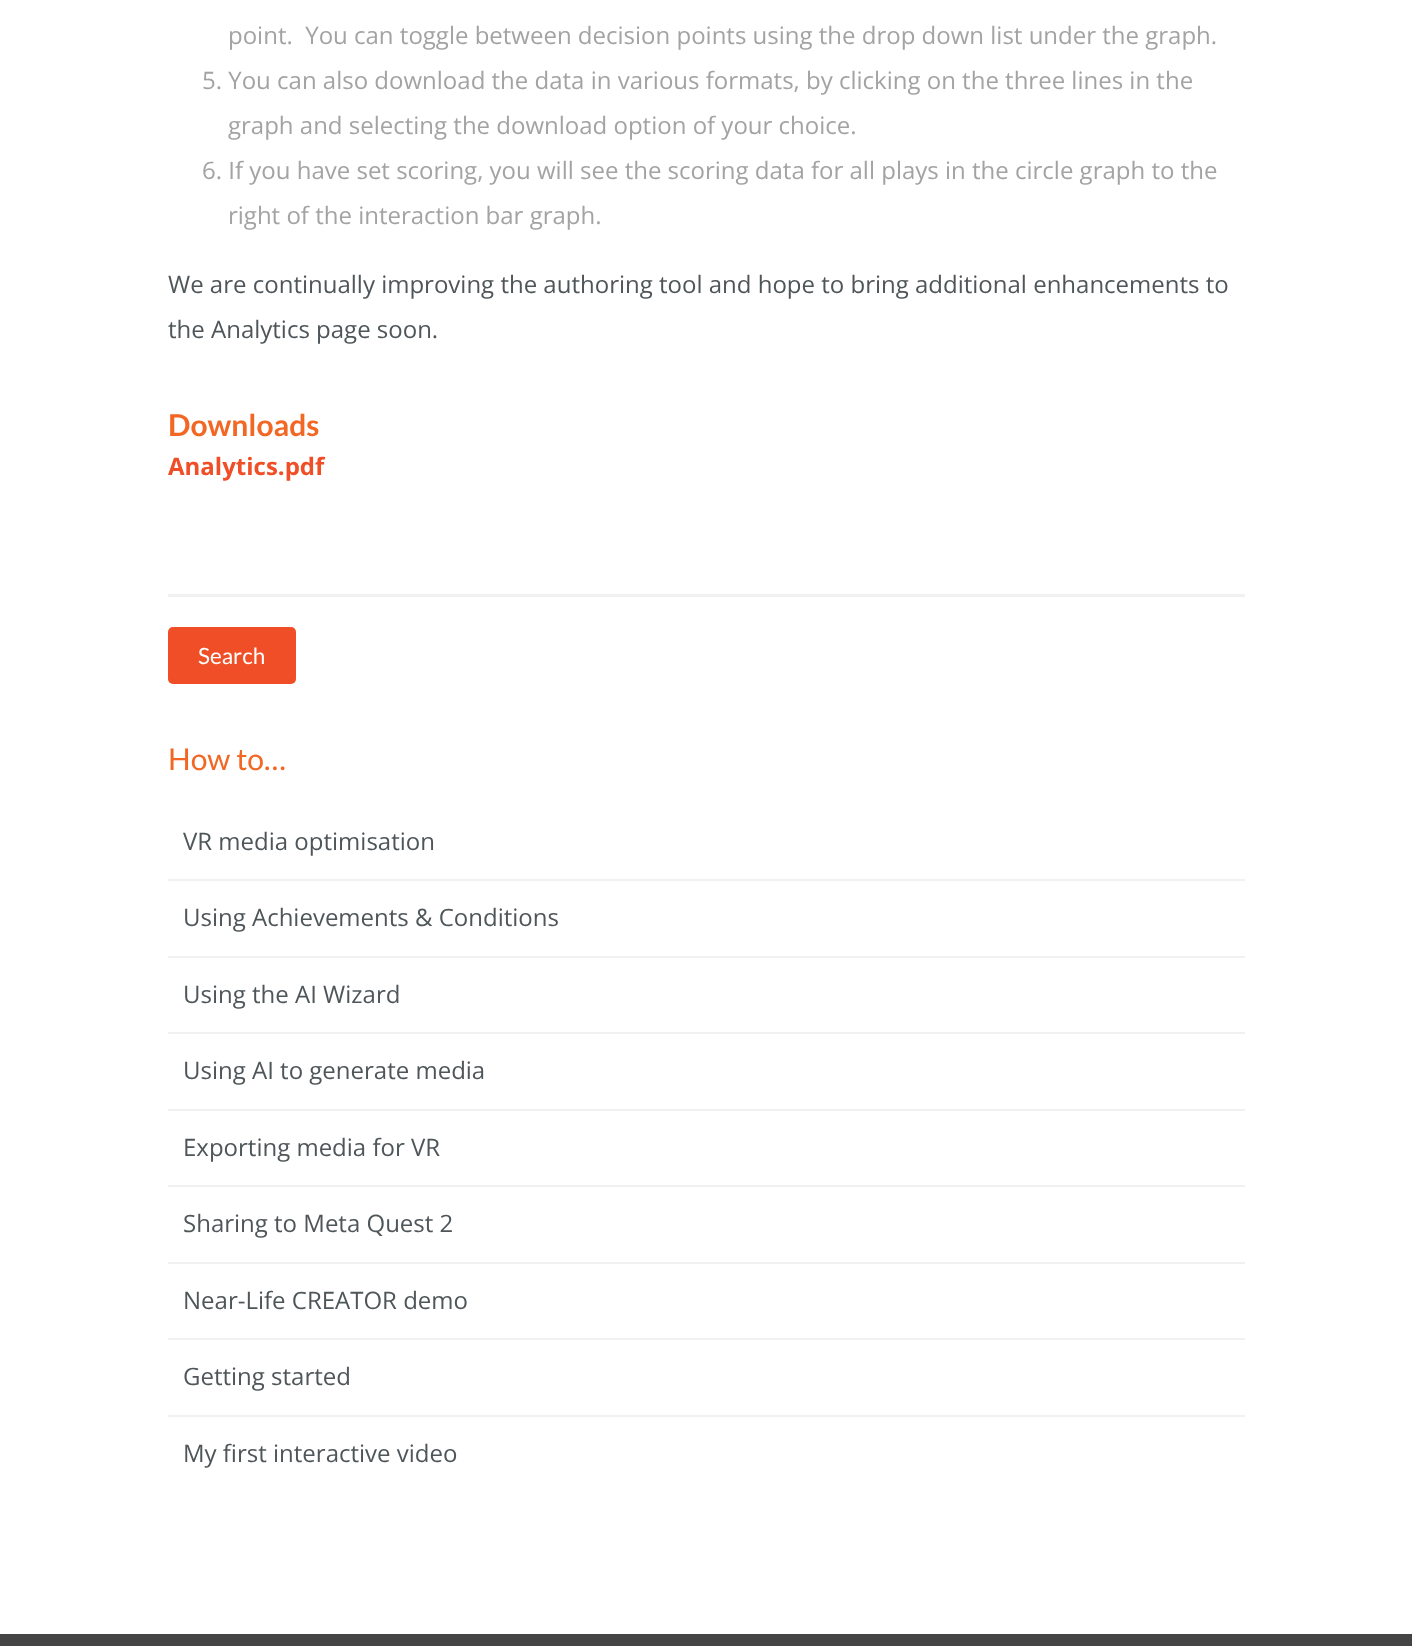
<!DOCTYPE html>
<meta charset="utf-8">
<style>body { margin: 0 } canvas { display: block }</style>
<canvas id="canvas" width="1412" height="1646"></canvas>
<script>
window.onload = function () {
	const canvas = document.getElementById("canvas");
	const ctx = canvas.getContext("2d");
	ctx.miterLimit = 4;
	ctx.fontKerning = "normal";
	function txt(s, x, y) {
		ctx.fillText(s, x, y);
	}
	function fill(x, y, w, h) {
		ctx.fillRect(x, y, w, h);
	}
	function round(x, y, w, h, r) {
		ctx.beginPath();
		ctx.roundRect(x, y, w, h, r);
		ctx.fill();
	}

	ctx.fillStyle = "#FFFFFF";
	fill(0, 0, 1412, 1646);
	ctx.fillStyle = "#F1F1F1";
	fill(168, 594, 1077, 3);
	ctx.fillStyle = "#F04E26";
	round(168, 627, 128, 57, 5);
	ctx.fillStyle = "#F1F1F1";
	fill(168, 879, 1077, 2);
	fill(168, 956, 1077, 2);
	fill(168, 1032, 1077, 2);
	fill(168, 1109, 1077, 2);
	fill(168, 1185, 1077, 2);
	fill(168, 1262, 1077, 2);
	fill(168, 1338, 1077, 2);
	fill(168, 1415, 1077, 2);
	ctx.fillStyle = "#444444";
	fill(0, 1634, 1412, 12);
	ctx.font = "24px Open Sans";
	ctx.fillStyle = "#A3A3A3";
	txt("point.  You can toggle between decision points using the drop down list under the graph.", 228, 44);
	txt("5. You can also download the data in various formats, by clicking on the three lines in the", 202, 89);
	txt("graph and selecting the download option of your choice.", 228, 134);
	txt("6. If you have set scoring, you will see the scoring data for all plays in the circle graph to the", 202, 179);
	txt("right of the interaction bar graph.", 228, 224);
	ctx.fillStyle = "#4F5659";
	txt("We are continually improving the authoring tool and hope to bring additional enhancements to", 168, 293);
	txt("the Analytics page soon.", 168, 338);
	ctx.font = "bold 30px Lato";
	ctx.fillStyle = "#F26724";
	txt("Downloads", 168, 436);
	ctx.font = "bold 24px Open Sans";
	ctx.fillStyle = "#F04E26";
	txt("Analytics.pdf", 168, 475);
	ctx.font = "22.5px Lato";
	ctx.fillStyle = "#FFFFFF";
	txt("Search", 198, 664);
	ctx.font = "30px Lato";
	ctx.fillStyle = "#F26724";
	txt("How to…", 168, 770);
	ctx.font = "24px Open Sans";
	ctx.fillStyle = "#4F5659";
	txt("VR media optimisation", 183, 850);
	txt("Using Achievements & Conditions", 183, 926);
	txt("Using the AI Wizard", 183, 1003);
	txt("Using AI to generate media", 183, 1079);
	txt("Exporting media for VR", 183, 1156);
	txt("Sharing to Meta Quest 2", 183, 1232);
	txt("Near-Life CREATOR demo", 183, 1309);
	txt("Getting started", 183, 1385);
	txt("My first interactive video", 183, 1462);
};
</script>
